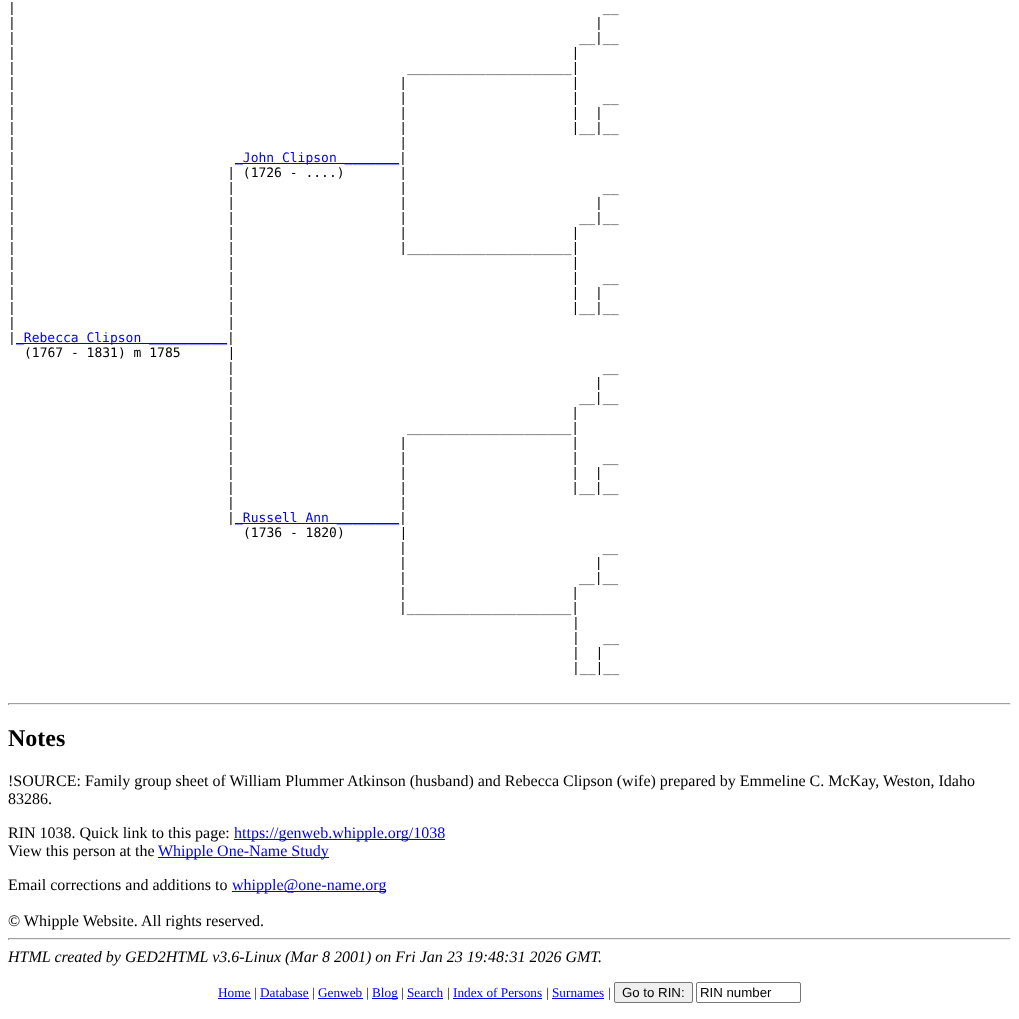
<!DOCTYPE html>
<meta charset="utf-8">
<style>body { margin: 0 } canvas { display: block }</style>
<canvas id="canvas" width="1019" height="1019"></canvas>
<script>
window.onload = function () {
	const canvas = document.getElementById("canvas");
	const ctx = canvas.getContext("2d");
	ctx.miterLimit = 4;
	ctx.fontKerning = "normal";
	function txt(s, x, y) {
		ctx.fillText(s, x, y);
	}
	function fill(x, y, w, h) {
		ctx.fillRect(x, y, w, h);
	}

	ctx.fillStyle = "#FFFFFF";
	fill(0, 0, 1019, 1019);
	ctx.fillStyle = "#0000EE";
	fill(235, 163, 164, 1);
	fill(16, 343, 211, 1);
	fill(235, 523, 164, 1);
	ctx.fillStyle = "#9F9F9F";
	fill(8, 703, 1003, 1);
	ctx.fillStyle = "#EEEEEE";
	fill(1010, 703, 1, 2);
	fill(8, 704, 1003, 1);
	ctx.fillStyle = "#9F9F9F";
	fill(8, 703, 1, 2);
	ctx.fillStyle = "#0000EE";
	fill(234, 839, 211, 1);
	fill(158, 857, 171, 1);
	fill(232, 891, 154, 1);
	ctx.fillStyle = "#9F9F9F";
	fill(8, 938, 1003, 1);
	ctx.fillStyle = "#EEEEEE";
	fill(1010, 938, 1, 2);
	fill(8, 939, 1003, 1);
	ctx.fillStyle = "#9F9F9F";
	fill(8, 938, 1, 2);
	ctx.fillStyle = "#0000EE";
	fill(218, 998, 33, 1);
	fill(260, 998, 49, 1);
	fill(318, 998, 45, 1);
	fill(372, 998, 26, 1);
	fill(407, 998, 36, 1);
	fill(453, 998, 89, 1);
	fill(552, 998, 52, 1);
	ctx.fillStyle = "#EFEFEF";
	ctx.beginPath();
	ctx.roundRect(614.5, 982.5, 78, 20, 1.5);
	ctx.fill();
	ctx.strokeStyle = "#767676";
	ctx.stroke();
	ctx.beginPath();
	ctx.roundRect(696.5, 982.5, 104, 20, 1.5);
	ctx.stroke();
	ctx.font = "13px DejaVu Sans Mono";
	ctx.fillStyle = "#000000";
	txt("|                                                                           __", 8, 12);
	txt("|                                                                          |", 8, 27);
	txt("|                                                                        __|__", 8, 42);
	txt("|                                                                       |", 8, 57);
	txt("|                                                  _____________________|", 8, 72);
	txt("|                                                 |                     |", 8, 87);
	txt("|                                                 |                     |   __", 8, 102);
	txt("|                                                 |                     |  |", 8, 117);
	txt("|                                                 |                     |__|__", 8, 132);
	txt("|                                                 |", 8, 147);
	txt("|", 8, 162);
	ctx.fillStyle = "#0000EE";
	txt("_John Clipson _______", 235, 162);
	ctx.fillStyle = "#000000";
	txt("|", 399, 162);
	txt("|                           | (1726 - ....)       |", 8, 177);
	txt("|                           |                     |                         __", 8, 192);
	txt("|                           |                     |                        |", 8, 207);
	txt("|                           |                     |                      __|__", 8, 222);
	txt("|                           |                     |                     |", 8, 237);
	txt("|                           |                     |_____________________|", 8, 252);
	txt("|                           |                                           |", 8, 267);
	txt("|                           |                                           |   __", 8, 282);
	txt("|                           |                                           |  |", 8, 297);
	txt("|                           |                                           |__|__", 8, 312);
	txt("|                           |", 8, 327);
	txt("|", 8, 342);
	ctx.fillStyle = "#0000EE";
	txt("_Rebecca Clipson __________", 16, 342);
	ctx.fillStyle = "#000000";
	txt("|", 227, 342);
	txt("(1767 - 1831) m 1785      |", 24, 357);
	txt("|                                               __", 227, 372);
	txt("|                                              |", 227, 387);
	txt("|                                            __|__", 227, 402);
	txt("|                                           |", 227, 417);
	txt("|                      _____________________|", 227, 432);
	txt("|                     |                     |", 227, 447);
	txt("|                     |                     |   __", 227, 462);
	txt("|                     |                     |  |", 227, 477);
	txt("|                     |                     |__|__", 227, 492);
	txt("|                     |", 227, 507);
	txt("|", 227, 522);
	ctx.fillStyle = "#0000EE";
	txt("_Russell Ann ________", 235, 522);
	ctx.fillStyle = "#000000";
	txt("|", 399, 522);
	txt("(1736 - 1820)       |", 243, 537);
	txt("|                         __", 399, 552);
	txt("|                        |", 399, 567);
	txt("|                      __|__", 399, 582);
	txt("|                     |", 399, 597);
	txt("|_____________________|", 399, 612);
	txt("|", 572, 627);
	txt("|   __", 572, 642);
	txt("|  |", 572, 657);
	txt("|__|__", 572, 672);
	ctx.font = "bold 24px Liberation Serif";
	txt("Notes", 8, 746);
	ctx.font = "16px Liberation Serif";
	txt("!SOURCE: Family group sheet of William Plummer Atkinson (husband) and Rebecca Clipson (wife) prepared by Emmeline C. McKay, Weston, Idaho", 8, 786);
	txt("83286.", 8, 804);
	txt("RIN 1038. Quick link to this page:", 8, 838);
	ctx.fillStyle = "#0000EE";
	txt("https://genweb.whipple.org/1038", 234, 838);
	ctx.fillStyle = "#000000";
	txt("View this person at the", 8, 856);
	ctx.fillStyle = "#0000EE";
	txt("Whipple One-Name Study", 158, 856);
	ctx.fillStyle = "#000000";
	txt("Email corrections and additions to", 8, 890);
	ctx.fillStyle = "#0000EE";
	txt("whipple@one-name.org", 232, 890);
	ctx.fillStyle = "#000000";
	txt("© Whipple Website. All rights reserved.", 8, 926);
	ctx.font = "italic 16px Liberation Serif";
	txt("HTML created by GED2HTML v3.6-Linux (Mar 8 2001) on Fri Jan 23 19:48:31 2026 GMT.", 8, 962);
	ctx.font = "13.25px Liberation Serif";
	ctx.fillStyle = "#0000EE";
	txt("Home", 218, 997);
	ctx.fillStyle = "#000000";
	txt("|", 254, 997);
	ctx.fillStyle = "#0000EE";
	txt("Database", 260, 997);
	ctx.fillStyle = "#000000";
	txt("|", 312, 997);
	ctx.fillStyle = "#0000EE";
	txt("Genweb", 318, 997);
	ctx.fillStyle = "#000000";
	txt("|", 366, 997);
	ctx.fillStyle = "#0000EE";
	txt("Blog", 372, 997);
	ctx.fillStyle = "#000000";
	txt("|", 401, 997);
	ctx.fillStyle = "#0000EE";
	txt("Search", 407, 997);
	ctx.fillStyle = "#000000";
	txt("|", 447, 997);
	ctx.fillStyle = "#0000EE";
	txt("Index of Persons", 453, 997);
	ctx.fillStyle = "#000000";
	txt("|", 546, 997);
	ctx.fillStyle = "#0000EE";
	txt("Surnames", 552, 997);
	ctx.fillStyle = "#000000";
	txt("|", 608, 997);
	ctx.font = "13.25px Liberation Sans";
	txt("Go to RIN:", 622, 997);
	txt("RIN number", 700, 997);
};
</script>
